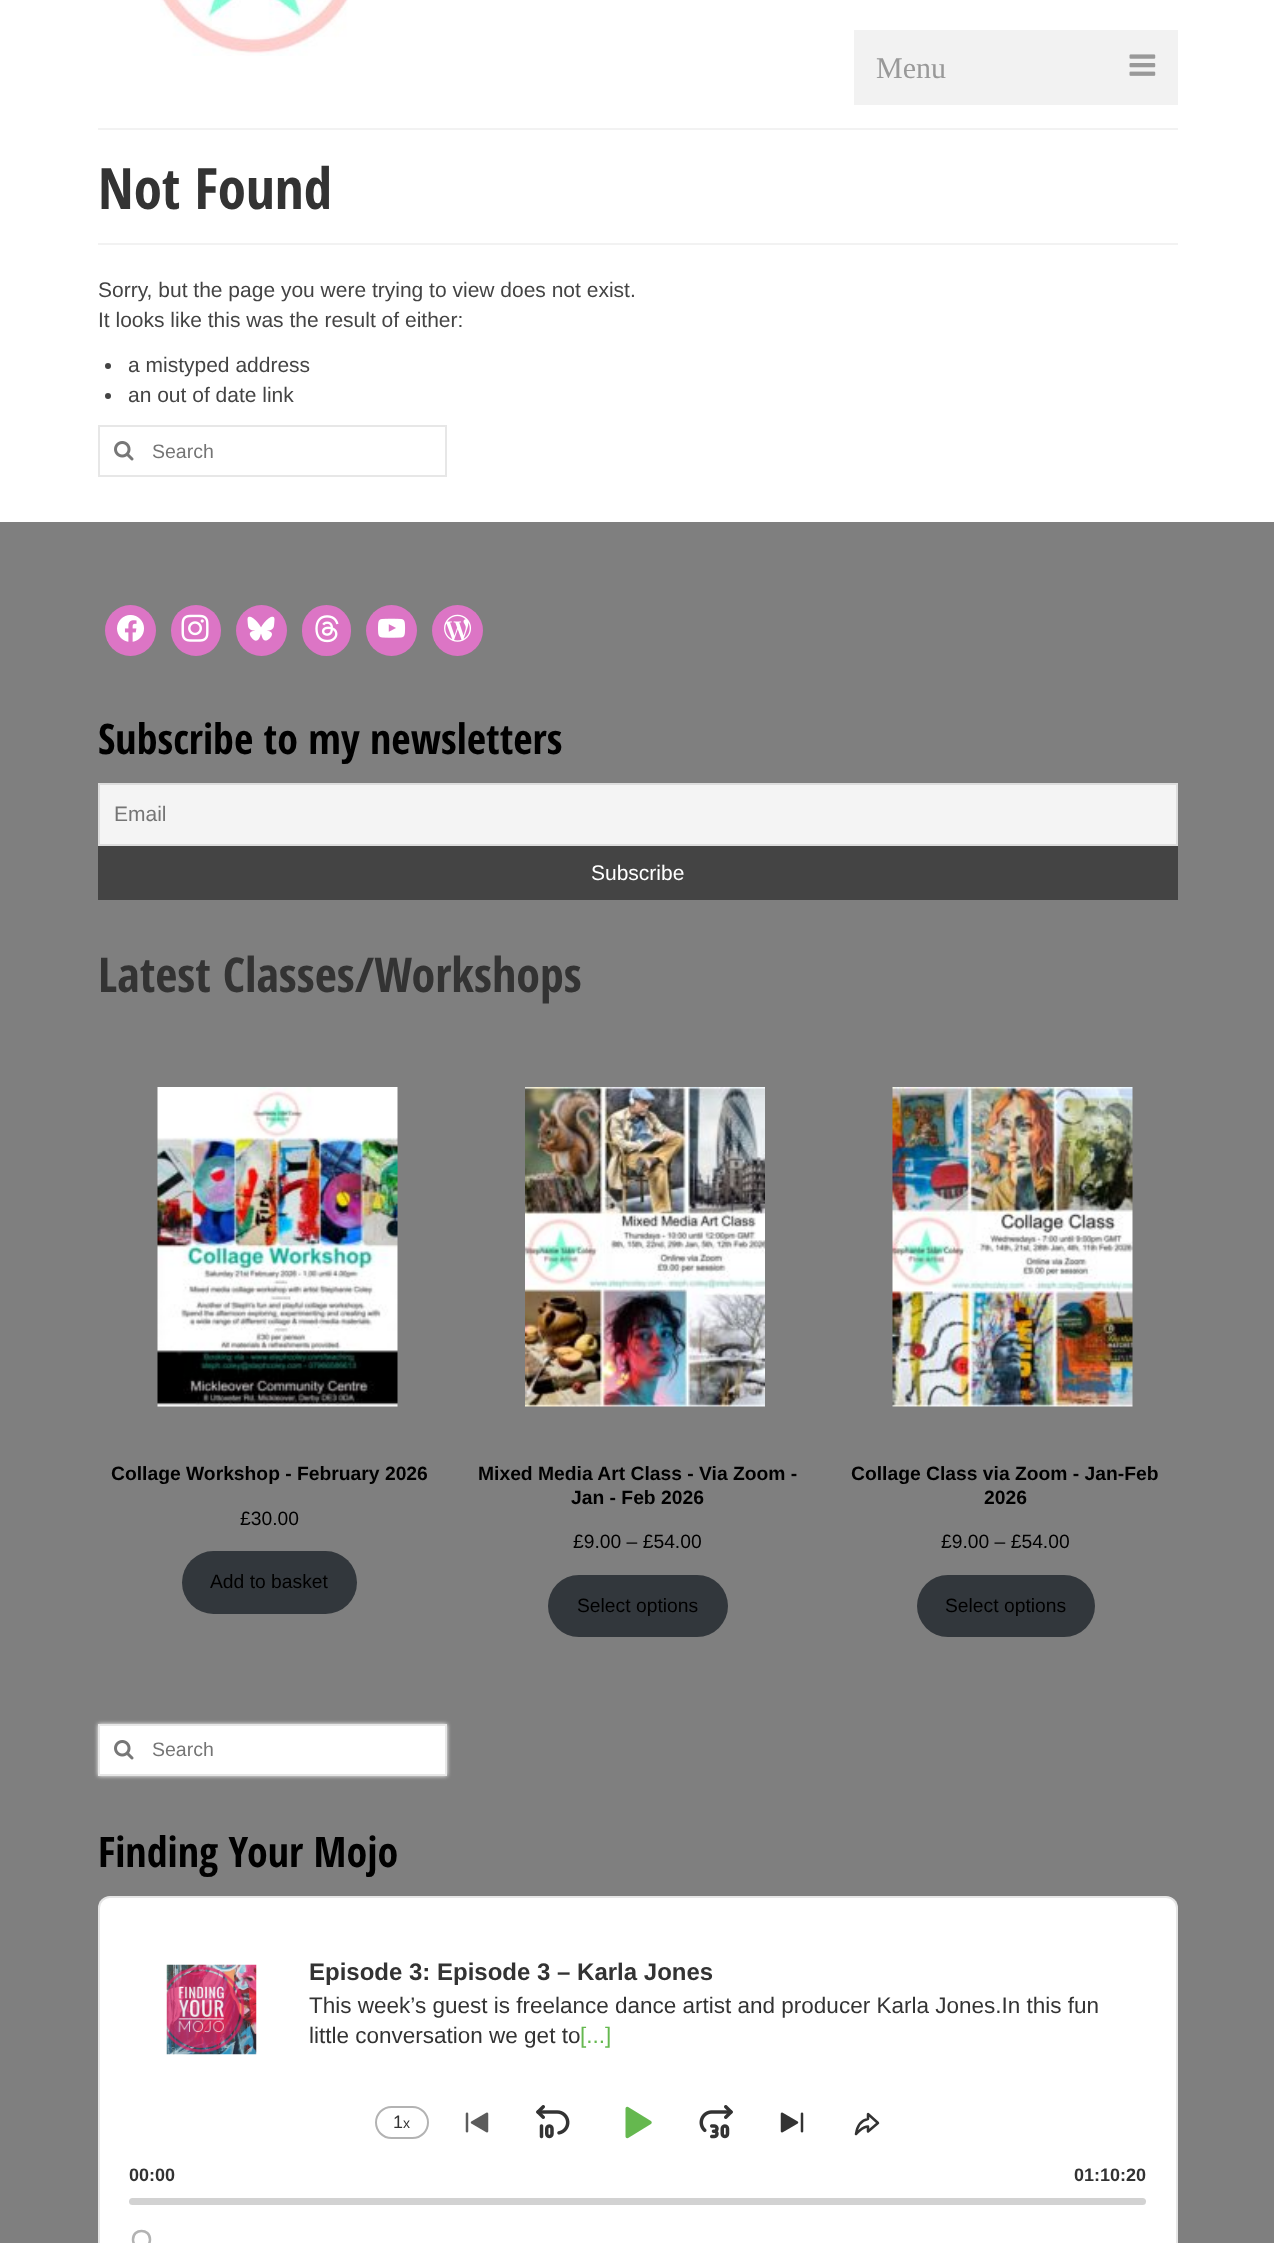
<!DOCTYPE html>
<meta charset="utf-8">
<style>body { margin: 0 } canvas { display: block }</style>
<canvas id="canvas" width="1274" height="2243"></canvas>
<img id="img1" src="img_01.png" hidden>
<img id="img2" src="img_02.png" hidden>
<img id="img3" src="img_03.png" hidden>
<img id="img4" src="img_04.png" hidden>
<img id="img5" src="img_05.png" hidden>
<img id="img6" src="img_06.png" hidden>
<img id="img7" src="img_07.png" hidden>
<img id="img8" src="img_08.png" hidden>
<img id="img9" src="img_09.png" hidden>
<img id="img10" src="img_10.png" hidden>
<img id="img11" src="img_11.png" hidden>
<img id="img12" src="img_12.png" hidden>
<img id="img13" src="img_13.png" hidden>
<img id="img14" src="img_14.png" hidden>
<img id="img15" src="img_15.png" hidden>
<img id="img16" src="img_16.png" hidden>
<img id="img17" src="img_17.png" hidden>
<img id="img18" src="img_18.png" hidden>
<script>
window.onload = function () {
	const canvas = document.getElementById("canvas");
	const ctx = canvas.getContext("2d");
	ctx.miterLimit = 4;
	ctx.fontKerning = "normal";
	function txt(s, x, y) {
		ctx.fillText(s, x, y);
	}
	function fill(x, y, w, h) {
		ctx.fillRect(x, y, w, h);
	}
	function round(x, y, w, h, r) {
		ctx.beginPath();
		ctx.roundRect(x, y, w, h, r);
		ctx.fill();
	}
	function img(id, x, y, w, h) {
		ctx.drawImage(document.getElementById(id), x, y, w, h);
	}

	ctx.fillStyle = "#FFFFFF";
	fill(0, 0, 1274, 2243);
	img("img1", 160, 0, 188, 56);
	ctx.fillStyle = "#F2F2F2";
	fill(854, 30, 324, 75);
	img("img2", 1129, 54, 27, 22);
	fill(98, 128, 1080, 2);
	fill(98, 243, 1080, 2);
	ctx.fillStyle = "#444444";
	ctx.beginPath();
	ctx.arc(108, 366, 3, 0, Math.PI * 2);
	ctx.fill();
	ctx.beginPath();
	ctx.arc(108, 396, 3, 0, Math.PI * 2);
	ctx.fill();
	ctx.strokeStyle = "#E7E7E7";
	ctx.lineWidth = 2;
	ctx.strokeRect(99, 426, 347, 50);
	img("img3", 114, 441, 20, 20);
	ctx.fillStyle = "#7F7F7F";
	fill(0, 522, 1274, 1721);
	ctx.fillStyle = "#DC75C5";
	ctx.beginPath();
	ctx.arc(130.5, 630.5, 25.5, 0, Math.PI * 2);
	ctx.fill();
	img("img4", 117, 615, 27, 27);
	round(171, 605, 50, 51, 25);
	img("img5", 181, 614, 28, 28);
	ctx.beginPath();
	ctx.arc(261.5, 630.5, 25.5, 0, Math.PI * 2);
	ctx.fill();
	img("img6", 247, 616, 28, 25);
	round(302, 605, 49, 51, 24.5);
	img("img7", 315, 615, 24, 28);
	ctx.beginPath();
	ctx.arc(391.5, 630.5, 25.5, 0, Math.PI * 2);
	ctx.fill();
	img("img8", 378, 618, 28, 20);
	ctx.beginPath();
	ctx.arc(457.5, 630.5, 25.5, 0, Math.PI * 2);
	ctx.fill();
	img("img9", 444, 614, 27, 28);
	ctx.fillStyle = "#F4F4F4";
	ctx.beginPath();
	ctx.rect(99, 784, 1078, 61);
	ctx.fill();
	ctx.strokeStyle = "#DDDDDD";
	ctx.stroke();
	ctx.fillStyle = "#444444";
	fill(98, 846, 1080, 54);
	img("img10", 157, 1087, 241, 320);
	ctx.fillStyle = "#32373C";
	round(182, 1551, 175, 63, 31.5);
	img("img11", 525, 1087, 240, 320);
	round(548, 1575, 180, 62, 31);
	img("img12", 892, 1087, 241, 320);
	round(917, 1575, 178, 62, 31);
	ctx.fillStyle = "#FFFFFF";
	ctx.filter = "blur(2px)";
	ctx.beginPath();
	ctx.rect(98, 1724, 349, 52);
	ctx.fill();
	ctx.filter = "none";
	ctx.beginPath();
	ctx.rect(99, 1725, 347, 50);
	ctx.fill();
	ctx.strokeStyle = "#E7E7E7";
	ctx.stroke();
	img("img3", 114, 1740, 20, 20);
	round(98, 1896, 1080, 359, 12);
	ctx.beginPath();
	ctx.roundRect(99, 1897, 1078, 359, 11);
	ctx.strokeStyle = "rgba(0, 0, 0, 0.1)";
	ctx.stroke();
	img("img13", 166, 1964, 91, 91);
	ctx.beginPath();
	ctx.roundRect(376, 2107, 52, 31, 15.5);
	ctx.strokeStyle = "#B3B3B3";
	ctx.stroke();
	img("img14", 465, 2112, 24, 21);
	img("img15", 536, 2105, 34, 34);
	img("img16", 625, 2106, 27, 33);
	img("img17", 699, 2105, 34, 34);
	img("img18", 780, 2112, 24, 21);
	ctx.beginPath();
	ctx.moveTo(868, 2114);
	ctx.lineTo(868, 2119);
	ctx.bezierCurveTo(860, 2120.5, 857, 2127.5, 856, 2134);
	ctx.bezierCurveTo(855.5, 2134.5, 862.5, 2126.5, 868, 2126.5);
	ctx.lineTo(868, 2131.5);
	ctx.lineTo(878, 2123);
	ctx.closePath();
	ctx.strokeStyle = "#333333";
	ctx.lineWidth = 2.5;
	ctx.lineCap = "round";
	ctx.lineJoin = "round";
	ctx.stroke();
	ctx.fillStyle = "#D2D2D2";
	round(129, 2198, 1017, 7, 3.5);
	ctx.beginPath();
	ctx.moveTo(133, 2239.5);
	ctx.bezierCurveTo(133, 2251, 150, 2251, 150, 2239.5);
	ctx.bezierCurveTo(150, 2228, 133, 2228, 133, 2239.5);
	ctx.moveTo(155, 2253.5);
	ctx.lineTo(148, 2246);
	ctx.strokeStyle = "#B3B3B3";
	ctx.stroke();
	ctx.font = "30px Liberation Serif";
	ctx.fillStyle = "#999999";
	txt("Menu", 876, 78);
	ctx.font = "bold 57px Open Sans Condensed";
	ctx.fillStyle = "#333333";
	txt("Not Found", 98, 209);
	ctx.font = "21px Liberation Sans";
	ctx.fillStyle = "#444444";
	txt("Sorry, but the page you were trying to view does not exist.", 98, 297);
	txt("It looks like this was the result of either:", 98, 327);
	txt("a mistyped address", 128, 372);
	txt("an out of date link", 128, 402);
	ctx.font = "19.5px Liberation Sans";
	ctx.fillStyle = "#757575";
	txt("Search", 152, 458);
	ctx.font = "bold 42px Open Sans Condensed";
	ctx.fillStyle = "#000000";
	txt("Subscribe to my newsletters", 98, 754);
	ctx.font = "21px Liberation Sans";
	ctx.fillStyle = "#757575";
	txt("Email", 114, 821);
	ctx.fillStyle = "#FFFFFF";
	txt("Subscribe", 591, 880);
	ctx.font = "bold 48px Open Sans Condensed";
	ctx.fillStyle = "#333333";
	txt("Latest Classes/Workshops", 98, 992);
	ctx.font = "bold 19.3px Liberation Sans";
	ctx.fillStyle = "#000000";
	txt("Collage Workshop - February 2026", 111, 1480);
	ctx.font = "19.3px Liberation Sans";
	txt("£30.00", 240, 1525);
	txt("Add to basket", 210, 1588);
	ctx.font = "bold 19.3px Liberation Sans";
	txt("Mixed Media Art Class - Via Zoom -", 478, 1480);
	txt("Jan - Feb 2026", 571, 1504);
	ctx.font = "19.3px Liberation Sans";
	txt("£9.00 – £54.00", 573, 1548);
	txt("Select options", 577, 1612);
	ctx.font = "bold 19.3px Liberation Sans";
	txt("Collage Class via Zoom - Jan-Feb", 851, 1480);
	txt("2026", 984, 1504);
	ctx.font = "19.3px Liberation Sans";
	txt("£9.00 – £54.00", 941, 1548);
	txt("Select options", 945, 1612);
	ctx.font = "19.5px Liberation Sans";
	ctx.fillStyle = "#757575";
	txt("Search", 152, 1756);
	ctx.font = "bold 42px Open Sans Condensed";
	ctx.fillStyle = "#000000";
	txt("Finding Your Mojo", 98, 1867);
	ctx.font = "bold 24px Liberation Sans";
	ctx.fillStyle = "#333333";
	txt("Episode 3: Episode 3 – Karla Jones", 309, 1980);
	ctx.font = "22.5px Liberation Sans";
	txt("This week’s guest is freelance dance artist and producer Karla Jones.In this fun", 309, 2013);
	txt("little conversation we get to", 309, 2043);
	ctx.fillStyle = "#65B84F";
	txt("[...]", 580, 2043);
	ctx.font = "18px Liberation Sans";
	ctx.fillStyle = "#333333";
	txt("1", 393, 2128);
	ctx.font = "14px Liberation Sans";
	txt("x", 403, 2128);
	ctx.font = "bold 18px Liberation Sans";
	txt("00:00", 129, 2181);
	txt("01:10:20", 1074, 2181);
};
</script>
